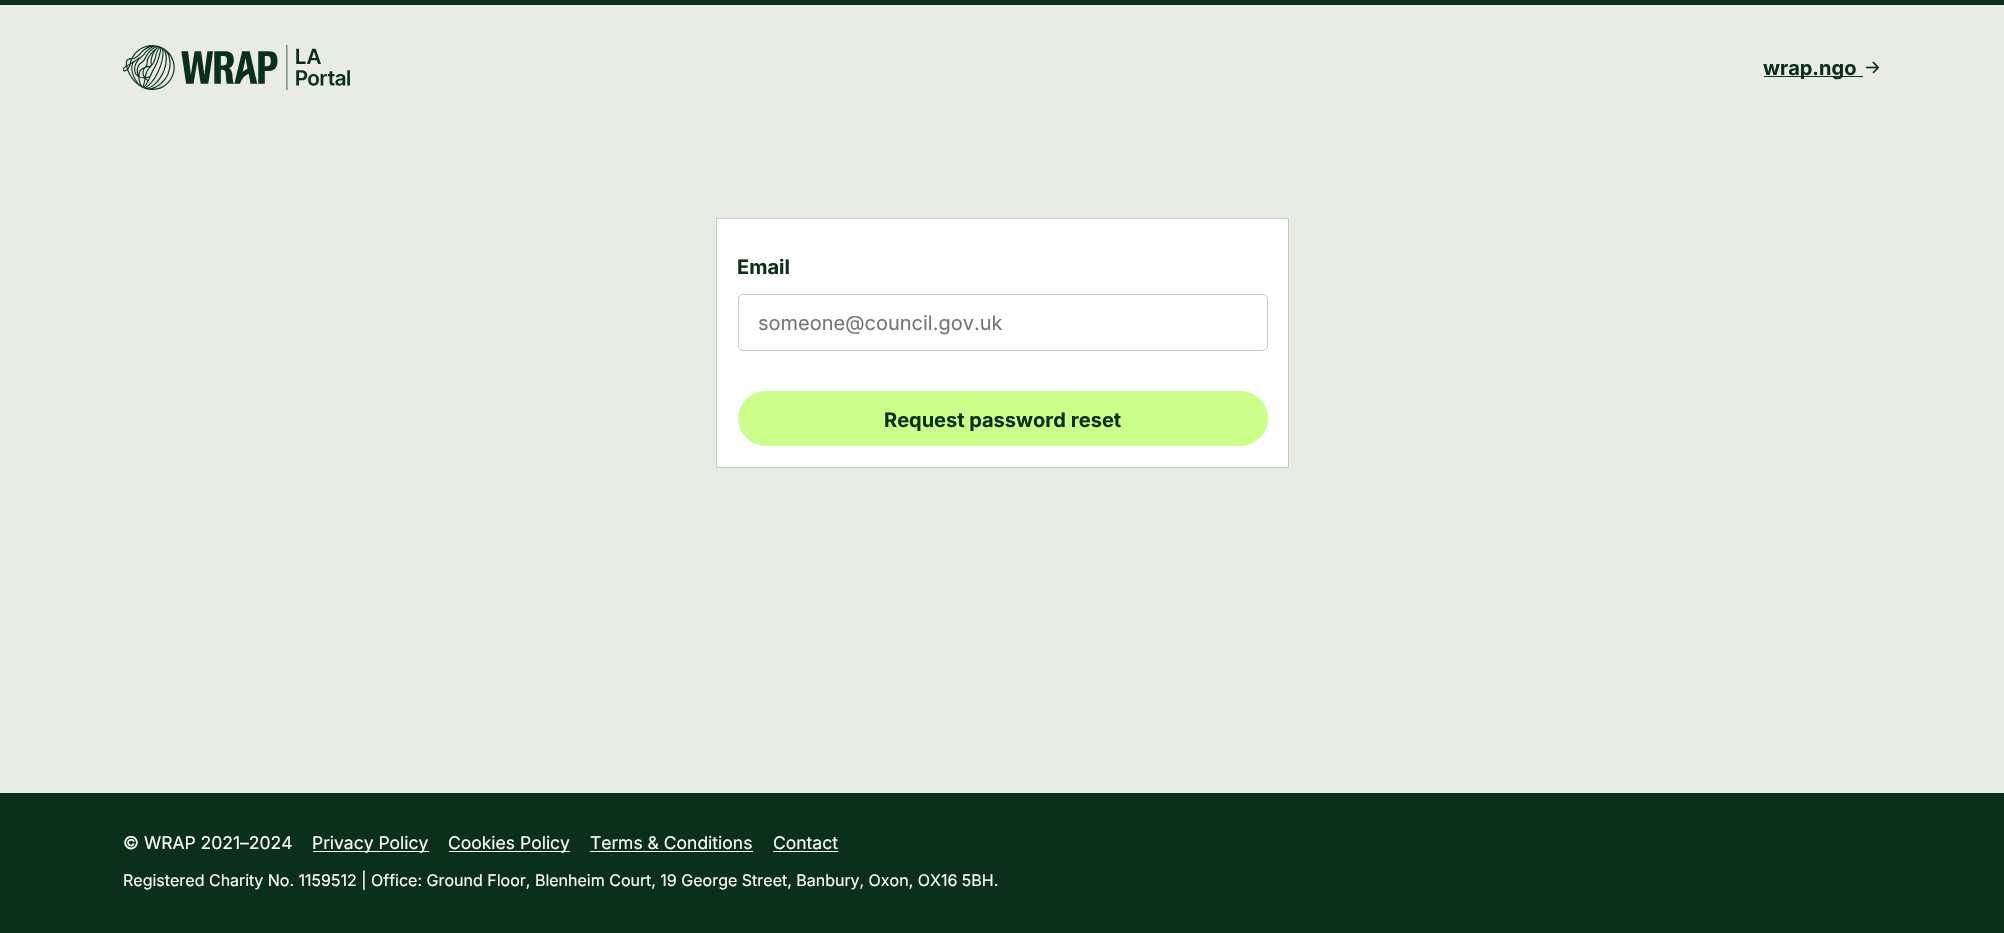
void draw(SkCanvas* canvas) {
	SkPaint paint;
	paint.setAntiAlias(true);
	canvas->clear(0xffe9ebe5);
	paint.setColor(0xff0b301a);
	canvas->drawRect(SkRect::MakeXYWH(0, 0, 2004, 5), paint);
	canvas->drawImageRect(SkImages::DeferredFromEncodedData(SkData::MakeFromFileName("img1.png")), SkRect::MakeXYWH(123, 45, 227, 45), SkSamplingOptions());
	canvas->drawRect(SkRect::MakeXYWH(1764, 76, 99, 1), paint);
	SkFont f1(fontMgr->matchFamilyStyle("Inter", SkFontStyle::Bold()), 20);
	f1.setSubpixel(true);
	canvas->drawString("wrap.ngo", 1763, 75, f1, paint);
	canvas->drawImageRect(SkImages::DeferredFromEncodedData(SkData::MakeFromFileName("img2.png")), SkRect::MakeXYWH(1865, 61, 15, 13), SkSamplingOptions());
	paint.setColor(0xffffffff);
	canvas->drawRect(SkRect::MakeXYWH(716.5, 218.5, 572, 249), paint);
	paint.setStroke(true);
	paint.setStrokeWidth(1);
	paint.setColor(0xffc2cbc6);
	canvas->drawRect(SkRect::MakeXYWH(716.5, 218.5, 572, 249), paint);
	paint.setStroke(false);
	paint.setColor(0xff0b301a);
	canvas->drawString("Email", 737, 274, f1, paint);
	paint.setStroke(true);
	paint.setColor(0xffc2cbc6);
	canvas->drawRoundRect(SkRect::MakeXYWH(738.5, 294.5, 529, 56), 4.5, 4.5, paint);
	SkFont f2(fontMgr->matchFamilyStyle("Inter", SkFontStyle::Normal()), 20);
	f2.setSubpixel(true);
	paint.setStroke(false);
	paint.setColor(0xff757575);
	canvas->drawString("someone@council.gov.uk", 758, 330, f2, paint);
	paint.setColor(0xffcbff89);
	canvas->drawRoundRect(SkRect::MakeXYWH(738.5, 391.5, 529, 54), 27, 27, paint);
	paint.setStroke(true);
	canvas->drawRoundRect(SkRect::MakeXYWH(738.5, 391.5, 529, 54), 27, 27, paint);
	paint.setStroke(false);
	paint.setColor(0xff0b301a);
	canvas->drawString("Request password reset", 884, 427, f1, paint);
	canvas->drawRect(SkRect::MakeXYWH(0, 793, 2004, 140), paint);
	SkFont f3(fontMgr->matchFamilyStyle("Inter", SkFontStyle::Normal()), 17.5);
	f3.setSubpixel(true);
	paint.setColor(0xffffffff);
	canvas->drawString("© WRAP 2021–2024", 123, 849, f3, paint);
	canvas->drawRect(SkRect::MakeXYWH(313, 851, 116, 1), paint);
	canvas->drawString("Privacy Policy", 312, 849, f3, paint);
	canvas->drawRect(SkRect::MakeXYWH(449, 851, 121, 1), paint);
	canvas->drawString("Cookies Policy", 448, 849, f3, paint);
	canvas->drawString("Terms & Conditions", 590, 849, f3, paint);
	canvas->drawRect(SkRect::MakeXYWH(590, 851, 163, 1), paint);
	canvas->drawString("Contact", 773, 849, f3, paint);
	canvas->drawRect(SkRect::MakeXYWH(773, 851, 65, 1), paint);
	SkFont f4(fontMgr->matchFamilyStyle("Inter", SkFontStyle::Normal()), 16);
	f4.setSubpixel(true);
	canvas->drawString("Registered Charity No. 1159512 | Office: Ground Floor, Blenheim Court, 19 George Street, Banbury, Oxon, OX16 5BH.", 123, 886, f4, paint);
}
